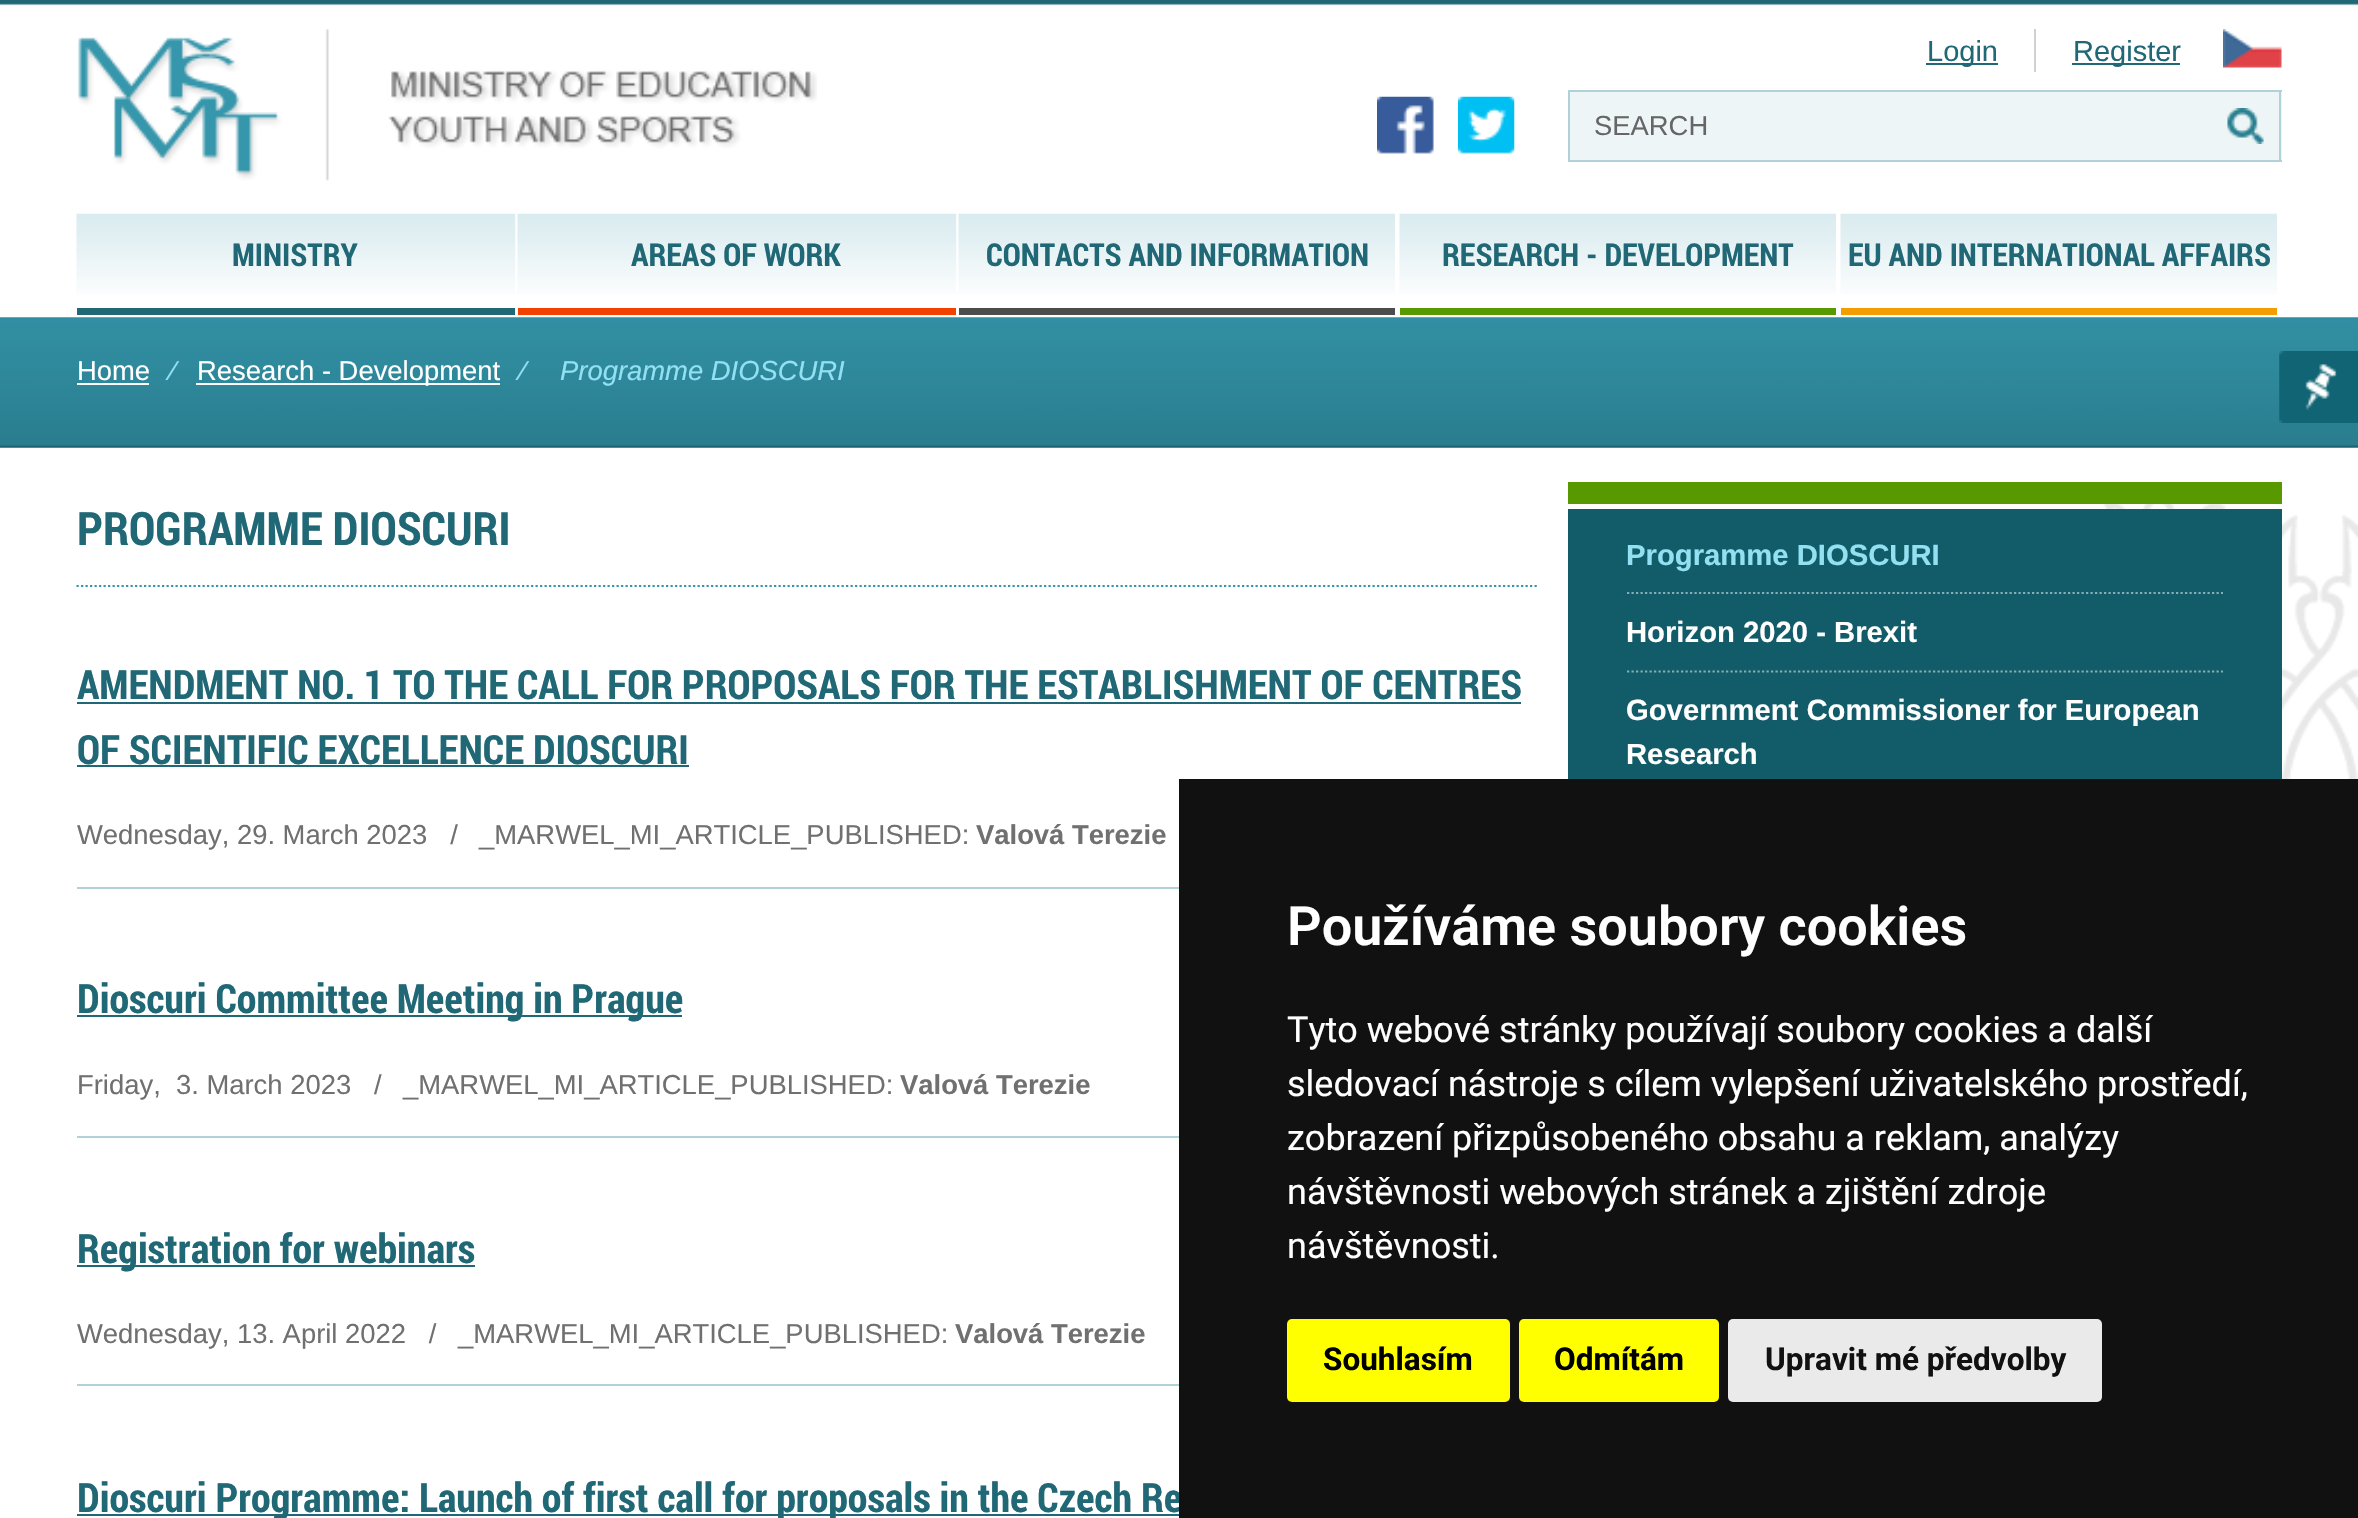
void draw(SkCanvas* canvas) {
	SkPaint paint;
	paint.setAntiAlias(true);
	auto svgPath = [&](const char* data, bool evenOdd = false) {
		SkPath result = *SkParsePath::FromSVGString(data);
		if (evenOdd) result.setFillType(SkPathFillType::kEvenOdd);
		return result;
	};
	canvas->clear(0xffffffff);
	canvas->drawImageRect(SkImages::DeferredFromEncodedData(SkData::MakeFromFileName("img1.png")), SkRect::MakeXYWH(0, 0, 2358, 6), SkSamplingOptions());
	canvas->drawImageRect(SkImages::DeferredFromEncodedData(SkData::MakeFromFileName("img2.png")), SkRect::MakeXYWH(0, 317, 2358, 131), SkSamplingOptions());
	canvas->drawImageRect(SkImages::DeferredFromEncodedData(SkData::MakeFromFileName("img3.png")), SkRect::MakeXYWH(2103, 504, 255, 275), SkSamplingOptions());
	canvas->drawImageRect(SkImages::DeferredFromEncodedData(SkData::MakeFromFileName("img4.png")), SkRect::MakeXYWH(78, 29, 739, 152), SkSamplingOptions());
	paint.setColor(0xff206875);
	canvas->drawRect(SkRect::MakeXYWH(1926, 63, 72, 2), paint);
	SkFont f1(fontMgr->matchFamilyStyle("Liberation Sans", SkFontStyle::Normal()), 29);
	f1.setSubpixel(true);
	canvas->drawString("Login", 1927, 61, f1, paint);
	paint.setColor(0xffd1d1d1);
	canvas->drawRect(SkRect::MakeXYWH(2034, 29, 2, 43), paint);
	paint.setColor(0xff206875);
	canvas->drawRect(SkRect::MakeXYWH(2072, 63, 108, 2), paint);
	canvas->drawString("Register", 2073, 61, f1, paint);
	canvas->drawImageRect(SkImages::DeferredFromEncodedData(SkData::MakeFromFileName("img5.png")), SkRect::MakeXYWH(2223, 29, 59, 39), SkSamplingOptions());
	canvas->drawImageRect(SkImages::DeferredFromEncodedData(SkData::MakeFromFileName("img6.png")), SkRect::MakeXYWH(1377, 96, 57, 58), SkSamplingOptions());
	canvas->drawImageRect(SkImages::DeferredFromEncodedData(SkData::MakeFromFileName("img7.png")), SkRect::MakeXYWH(1458, 96, 57, 58), SkSamplingOptions());
	paint.setColor(0xffedf5f6);
	canvas->drawRect(SkRect::MakeXYWH(1570, 92, 712, 68), paint);
	paint.setColor(0xffb0d1d7);
	canvas->drawRect(SkRect::MakeXYWH(1568, 90, 714, 2), paint);
	canvas->drawRect(SkRect::MakeXYWH(1568, 160, 642, 2), paint);
	canvas->drawRect(SkRect::MakeXYWH(1568, 90, 2, 72), paint);
	SkFont f2(fontMgr->matchFamilyStyle("Liberation Sans", SkFontStyle::Normal()), 27.4);
	f2.setSubpixel(true);
	paint.setColor(0xff666666);
	canvas->drawString("SEARCH", 1594, 135, f2, paint);
	canvas->drawImageRect(SkImages::DeferredFromEncodedData(SkData::MakeFromFileName("img8.png")), SkRect::MakeXYWH(2227, 108, 37, 36), SkSamplingOptions());
	paint.setColor(0xffb0d1d7);
	canvas->drawRect(SkRect::MakeXYWH(2279, 90, 2, 72), paint);
	canvas->drawRect(SkRect::MakeXYWH(2210, 160, 72, 2), paint);
	canvas->drawImageRect(SkImages::DeferredFromEncodedData(SkData::MakeFromFileName("img9.png")), SkRect::MakeXYWH(76, 213, 440, 81), SkSamplingOptions());
	paint.setColor(0xff206875);
	canvas->drawRect(SkRect::MakeXYWH(77, 308, 438, 7), paint);
	SkFont f3(fontMgr->matchFamilyStyle("Roboto Condensed", SkFontStyle::Bold()), 31.5);
	f3.setSubpixel(true);
	canvas->drawString("MINISTRY", 232, 266, f3, paint);
	canvas->drawImageRect(SkImages::DeferredFromEncodedData(SkData::MakeFromFileName("img9.png")), SkRect::MakeXYWH(517, 213, 440, 81), SkSamplingOptions());
	paint.setColor(0xfff34100);
	canvas->drawRect(SkRect::MakeXYWH(518, 308, 438, 7), paint);
	paint.setColor(0xff206875);
	canvas->drawString("AREAS OF WORK", 631, 266, f3, paint);
	canvas->drawImageRect(SkImages::DeferredFromEncodedData(SkData::MakeFromFileName("img10.png")), SkRect::MakeXYWH(958, 213, 437, 81), SkSamplingOptions());
	paint.setColor(0xff4c4c4c);
	canvas->drawRect(SkRect::MakeXYWH(959, 308, 436, 7), paint);
	paint.setColor(0xff206875);
	canvas->drawString("CONTACTS AND INFORMATION", 986, 266, f3, paint);
	canvas->drawImageRect(SkImages::DeferredFromEncodedData(SkData::MakeFromFileName("img10.png")), SkRect::MakeXYWH(1399, 213, 437, 81), SkSamplingOptions());
	paint.setColor(0xff599900);
	canvas->drawRect(SkRect::MakeXYWH(1400, 308, 436, 7), paint);
	paint.setColor(0xff206875);
	canvas->drawString("RESEARCH - DEVELOPMENT", 1442, 266, f3, paint);
	canvas->drawImageRect(SkImages::DeferredFromEncodedData(SkData::MakeFromFileName("img10.png")), SkRect::MakeXYWH(1840, 213, 437, 81), SkSamplingOptions());
	paint.setColor(0xfff59c00);
	canvas->drawRect(SkRect::MakeXYWH(1841, 308, 436, 7), paint);
	paint.setColor(0xff206875);
	canvas->drawString("EU AND INTERNATIONAL AFFAIRS", 1848, 266, f3, paint);
	canvas->drawImageRect(SkImages::DeferredFromEncodedData(SkData::MakeFromFileName("img11.png")), SkRect::MakeXYWH(2279, 351, 79, 72), SkSamplingOptions());
	paint.setColor(0xffffffff);
	canvas->drawString("Home", 77, 380, f2, paint);
	canvas->drawRect(SkRect::MakeXYWH(77, 383, 72, 2), paint);
	paint.setColor(0xff92e0f1);
	canvas->drawString("⁄", 171, 380, f2, paint);
	paint.setColor(0xffffffff);
	canvas->drawRect(SkRect::MakeXYWH(196, 383, 304, 2), paint);
	canvas->drawString("Research - Development", 197, 380, f2, paint);
	paint.setColor(0xff92e0f1);
	canvas->drawString("⁄", 521, 380, f2, paint);
	SkFont f4(fontMgr->matchFamilyStyle("Liberation Sans", SkFontStyle::Italic()), 27.4);
	f4.setSubpixel(true);
	canvas->drawString("Programme DIOSCURI", 560, 380, f4, paint);
	SkFont f5(fontMgr->matchFamilyStyle("Roboto Condensed", SkFontStyle::Bold()), 46);
	f5.setSubpixel(true);
	paint.setColor(0xff206875);
	canvas->drawString("PROGRAMME DIOSCURI", 77, 545, f5, paint);
	paint.setStroke(true);
	paint.setStrokeWidth(2.2);
	paint.setColor(0xff3696ab);
	paint.setPathEffect(SkDashPathEffect::Make({{2.25f, 2.25f}}, 0));
	canvas->drawPath(svgPath("M76.5 586H1537"), paint);
	paint.setPathEffect(nullptr);
	SkFont f6(fontMgr->matchFamilyStyle("Roboto Condensed", SkFontStyle::Bold()), 40.3);
	f6.setSubpixel(true);
	paint.setStroke(false);
	paint.setColor(0xff206875);
	canvas->drawString("AMENDMENT NO. 1 TO THE CALL FOR PROPOSALS FOR THE ESTABLISHMENT OF CENTRES", 77, 699, f6, paint);
	canvas->drawRect(SkRect::MakeXYWH(77, 702, 1444, 2), paint);
	canvas->drawString("OF SCIENTIFIC EXCELLENCE DIOSCURI", 77, 764, f6, paint);
	canvas->drawRect(SkRect::MakeXYWH(77, 765, 612, 2), paint);
	paint.setColor(0xffb0d1d7);
	canvas->drawRect(SkRect::MakeXYWH(77, 887, 1102, 2), paint);
	paint.setColor(0xff707070);
	canvas->drawString("Wednesday, 29. March 2023   /", 77, 844, f2, paint);
	canvas->drawString("_MARWEL_MI_ARTICLE_PUBLISHED:", 479, 844, f2, paint);
	SkFont f7(fontMgr->matchFamilyStyle("Liberation Sans", SkFontStyle::Bold()), 27.4);
	f7.setSubpixel(true);
	canvas->drawString("Valová Terezie", 976, 844, f7, paint);
	paint.setColor(0xff206875);
	canvas->drawRect(SkRect::MakeXYWH(77, 1015, 605, 2), paint);
	canvas->drawString("Dioscuri Committee Meeting in Prague", 77, 1013, f6, paint);
	paint.setColor(0xffb0d1d7);
	canvas->drawRect(SkRect::MakeXYWH(77, 1136, 1102, 2), paint);
	paint.setColor(0xff707070);
	canvas->drawString("Friday,  3. March 2023   /", 77, 1094, f2, paint);
	canvas->drawString("_MARWEL_MI_ARTICLE_PUBLISHED:", 403, 1094, f2, paint);
	canvas->drawString("Valová Terezie", 900, 1094, f7, paint);
	paint.setColor(0xff206875);
	canvas->drawRect(SkRect::MakeXYWH(77, 1265, 398, 2), paint);
	canvas->drawString("Registration for webinars", 77, 1263, f6, paint);
	paint.setColor(0xffb0d1d7);
	canvas->drawRect(SkRect::MakeXYWH(77, 1384, 1102, 2), paint);
	paint.setColor(0xff707070);
	canvas->drawString("Wednesday, 13. April 2022   /", 77, 1343, f2, paint);
	canvas->drawString("_MARWEL_MI_ARTICLE_PUBLISHED:", 458, 1343, f2, paint);
	canvas->drawString("Valová Terezie", 955, 1343, f7, paint);
	paint.setColor(0xff206875);
	canvas->drawRect(SkRect::MakeXYWH(77, 1514, 1102, 2), paint);
	canvas->drawString("Dioscuri Programme: Launch of first call for proposals in the Czech Re", 77, 1512, f6, paint);
	paint.setColor(0xff599900);
	canvas->drawRect(SkRect::MakeXYWH(1568, 482, 714, 22), paint);
	paint.setColor(0xff125b68);
	canvas->drawRect(SkRect::MakeXYWH(1568, 509, 714, 270), paint);
	paint.setStroke(true);
	paint.setColor(0xff89adb4);
	paint.setPathEffect(SkDashPathEffect::Make({{2.25f, 2.25f}}, 0));
	canvas->drawPath(svgPath("M1627 593H2223"), paint);
	paint.setPathEffect(nullptr);
	SkFont f8(fontMgr->matchFamilyStyle("Liberation Sans", SkFontStyle::Bold()), 29.25);
	f8.setSubpixel(true);
	paint.setStroke(false);
	paint.setColor(0xff92e0f1);
	canvas->drawString("Programme DIOSCURI", 1626, 565, f8, paint);
	paint.setStroke(true);
	paint.setColor(0xff89adb4);
	paint.setPathEffect(SkDashPathEffect::Make({{2.25f, 2.25f}}, 0));
	canvas->drawPath(svgPath("M1627 671.5H2223"), paint);
	paint.setPathEffect(nullptr);
	paint.setStroke(false);
	paint.setColor(0xffffffff);
	canvas->drawString("Horizon 2020 - Brexit", 1626, 642, f8, paint);
	canvas->drawString("Government Commissioner for European", 1626, 720, f8, paint);
	canvas->drawString("Research", 1626, 764, f8, paint);
	paint.setColor(0xff111111);
	canvas->drawRect(SkRect::MakeXYWH(1179, 779, 1179, 739), paint);
	SkFont f9(fontMgr->matchFamilyStyle("Roboto", SkFontStyle(600, SkFontStyle::kNormal_Width, SkFontStyle::kUpright_Slant)), 54);
	f9.setSubpixel(true);
	paint.setColor(0xffffffff);
	canvas->drawString("Používáme soubory cookies", 1287, 945, f9, paint);
	SkFont f10(fontMgr->matchFamilyStyle("Roboto", SkFontStyle::Normal()), 36);
	f10.setSubpixel(true);
	canvas->drawString("Tyto webové stránky používají soubory cookies a další", 1287, 1042, f10, paint);
	canvas->drawString("sledovací nástroje s cílem vylepšení uživatelského prostředí,", 1287, 1096, f10, paint);
	canvas->drawString("zobrazení přizpůsobeného obsahu a reklam, analýzy", 1287, 1150, f10, paint);
	canvas->drawString("návštěvnosti webových stránek a zjištění zdroje", 1287, 1204, f10, paint);
	canvas->drawString("návštěvnosti.", 1287, 1258, f10, paint);
	paint.setColor(0xffffff00);
	canvas->drawRoundRect(SkRect::MakeXYWH(1287, 1319, 223, 83), 5, 5, paint);
	SkFont f11(fontMgr->matchFamilyStyle("Roboto", SkFontStyle::Bold()), 31.5);
	f11.setSubpixel(true);
	paint.setColor(0xff000000);
	canvas->drawString("Souhlasím", 1323, 1370, f11, paint);
	paint.setColor(0xffffff00);
	canvas->drawRoundRect(SkRect::MakeXYWH(1519, 1319, 200, 83), 5, 5, paint);
	paint.setColor(0xff000000);
	canvas->drawString("Odmítám", 1554, 1370, f11, paint);
	paint.setColor(0xffeaeaea);
	canvas->drawRoundRect(SkRect::MakeXYWH(1728, 1319, 374, 83), 5, 5, paint);
	paint.setColor(0xff111111);
	canvas->drawString("Upravit mé předvolby", 1765, 1370, f11, paint);
}
